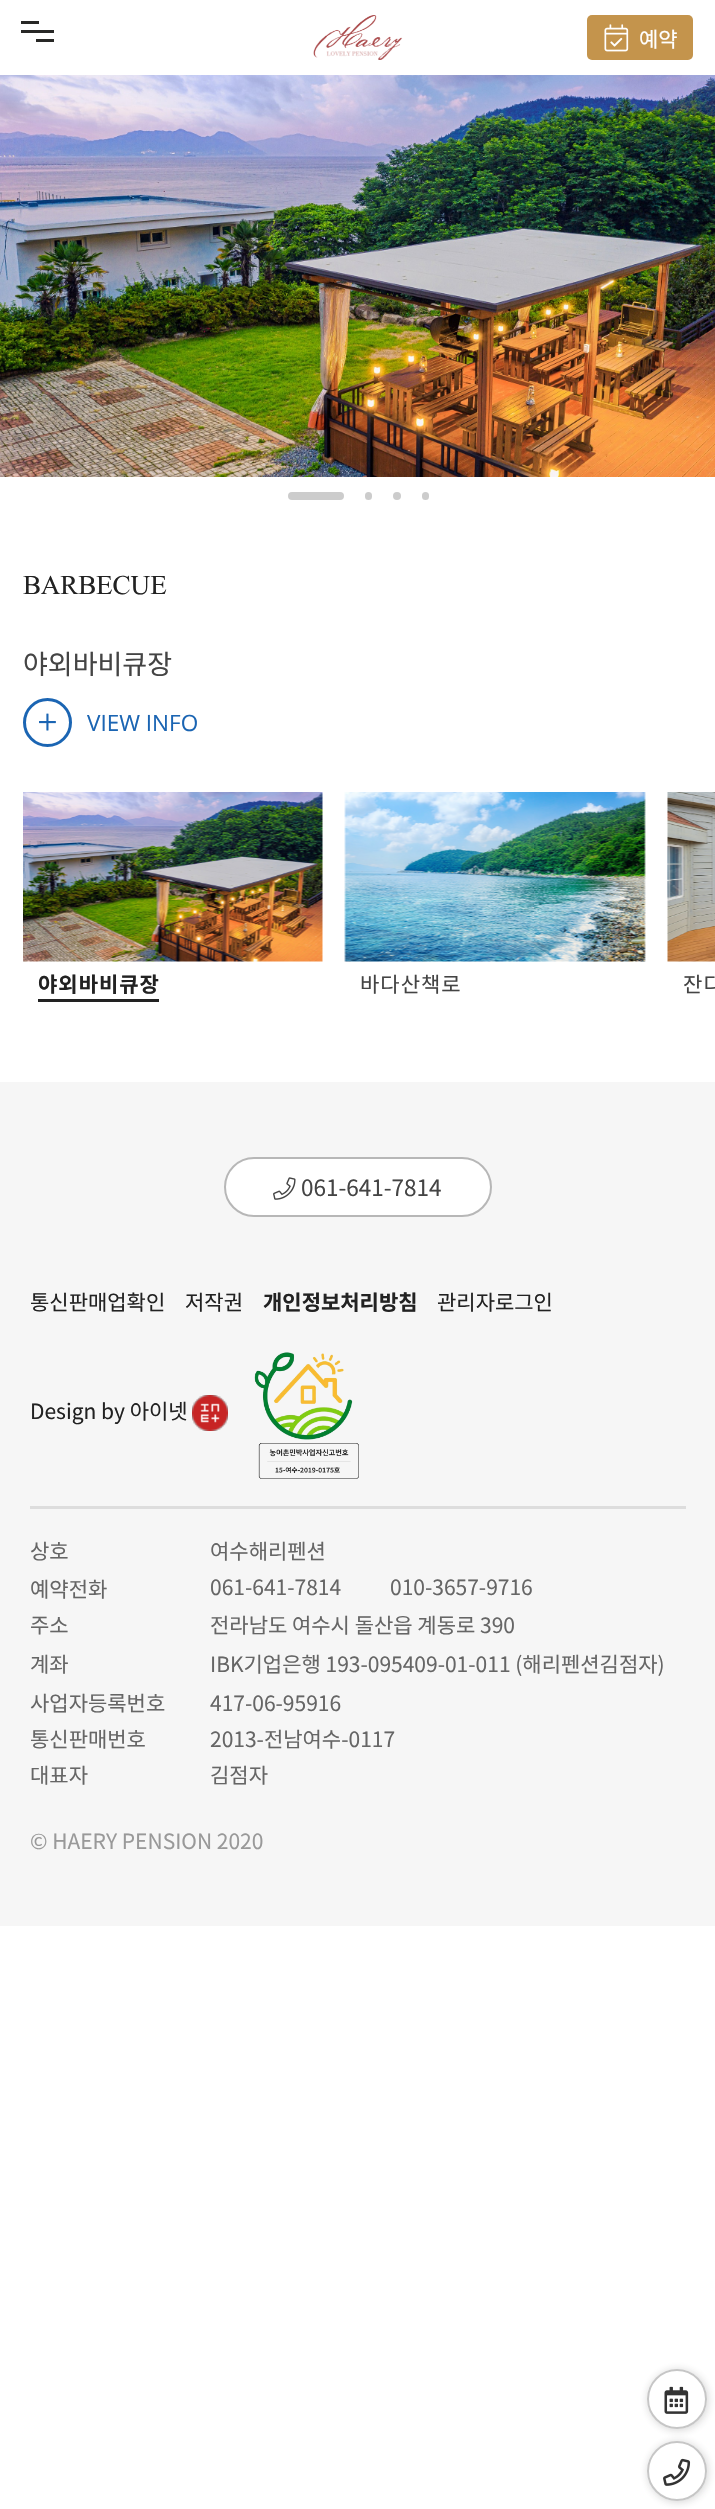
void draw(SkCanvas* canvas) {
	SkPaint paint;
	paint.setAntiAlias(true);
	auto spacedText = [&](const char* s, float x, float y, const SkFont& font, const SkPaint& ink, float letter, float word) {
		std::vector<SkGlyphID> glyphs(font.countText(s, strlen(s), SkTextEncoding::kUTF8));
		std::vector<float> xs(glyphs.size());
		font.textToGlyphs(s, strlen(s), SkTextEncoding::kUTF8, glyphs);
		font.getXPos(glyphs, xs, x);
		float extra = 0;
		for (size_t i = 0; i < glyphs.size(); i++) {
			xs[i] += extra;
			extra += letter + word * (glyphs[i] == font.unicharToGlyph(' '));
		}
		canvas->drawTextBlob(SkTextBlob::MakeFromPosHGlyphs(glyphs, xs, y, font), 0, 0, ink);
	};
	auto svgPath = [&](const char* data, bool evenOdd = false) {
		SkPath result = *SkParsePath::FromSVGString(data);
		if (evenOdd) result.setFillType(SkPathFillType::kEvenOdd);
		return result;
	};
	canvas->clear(0xffffffff);
	paint.setColor(0xff282826);
	canvas->drawRect(SkRect::MakeXYWH(21, 21, 18, 3), paint);
	canvas->drawRect(SkRect::MakeXYWH(21, 30, 33, 3), paint);
	canvas->drawRect(SkRect::MakeXYWH(36, 39, 18, 3), paint);
	canvas->drawImageRect(SkImages::DeferredFromEncodedData(SkData::MakeFromFileName("img1.png")), SkRect::MakeXYWH(313, 15, 90, 45), SkSamplingOptions());
	paint.setColor(0xffc4944c);
	canvas->drawRoundRect(SkRect::MakeXYWH(587, 15, 106, 45), 5, 5, paint);
	canvas->drawImageRect(SkImages::DeferredFromEncodedData(SkData::MakeFromFileName("img2.png")), SkRect::MakeXYWH(604, 24, 25, 28), SkSamplingOptions());
	SkFont f1(fontMgr->matchFamilyStyle("Noto Sans KR", SkFontStyle::Normal()), 21);
	f1.setSubpixel(true);
	paint.setColor(0xffffffff);
	canvas->drawString("예약", 639, 47, f1, paint);
	canvas->drawImageRect(SkImages::DeferredFromEncodedData(SkData::MakeFromFileName("img3.png")), SkRect::MakeXYWH(0, 75, 715, 402), SkSamplingOptions());
	paint.setColor(0xffcccccc);
	canvas->drawRoundRect(SkRect::MakeXYWH(288, 492, 56, 8), 4, 4, paint);
	canvas->drawRoundRect(SkRect::MakeXYWH(365, 492, 7, 8), 3.5, 3.5, paint);
	canvas->drawCircle(397, 496, 4, paint);
	canvas->drawRoundRect(SkRect::MakeXYWH(422, 492, 7, 8), 3.5, 3.5, paint);
	SkFont f2(fontMgr->matchFamilyStyle("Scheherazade", SkFontStyle::Normal()), 36);
	f2.setSubpixel(true);
	paint.setColor(0xff222222);
	canvas->drawString("BARBECUE", 23, 594, f2, paint);
	SkFont f3(fontMgr->matchFamilyStyle("Noto Sans KR", SkFontStyle::Normal()), 27);
	f3.setSubpixel(true);
	paint.setColor(0xff444444);
	canvas->drawString("야외바비큐장", 23, 674, f3, paint);
	paint.setStroke(true);
	paint.setStrokeWidth(3);
	paint.setColor(0xff1b65b3);
	canvas->drawCircle(47.5, 722.5, 23, paint);
	canvas->drawImageRect(SkImages::DeferredFromEncodedData(SkData::MakeFromFileName("img4.png")), SkRect::MakeXYWH(39, 713, 17, 18), SkSamplingOptions());
	SkFont f4(fontMgr->matchFamilyStyle("Open Sans", SkFontStyle::Normal()), 22.5);
	f4.setSubpixel(true);
	paint.setStroke(false);
	canvas->drawString("VIEW INFO", 87, 731, f4, paint);
	canvas->drawImageRect(SkImages::DeferredFromEncodedData(SkData::MakeFromFileName("img5.png")), SkRect::MakeXYWH(23, 792, 300, 170), SkSamplingOptions());
	SkFont f5(fontMgr->matchFamilyStyle("Noto Sans KR", SkFontStyle::Bold()), 21);
	f5.setSubpixel(true);
	paint.setColor(0xff222222);
	spacedText("야외바비큐장", 38, 992, f5, paint, 1, 0);
	canvas->drawRect(SkRect::MakeXYWH(38, 999, 121, 3), paint);
	canvas->drawImageRect(SkImages::DeferredFromEncodedData(SkData::MakeFromFileName("img6.png")), SkRect::MakeXYWH(344, 792, 302, 170), SkSamplingOptions());
	paint.setColor(0xff444444);
	spacedText("바다산책로", 360, 992, f1, paint, 1, 0);
	canvas->drawImageRect(SkImages::DeferredFromEncodedData(SkData::MakeFromFileName("img7.png")), SkRect::MakeXYWH(667, 792, 48, 170), SkSamplingOptions());
	spacedText("잔디", 683, 992, f1, paint, 1, 0);
	paint.setColor(0xfff6f6f6);
	canvas->drawRect(SkRect::MakeXYWH(0, 1082, 715, 844), paint);
	paint.setColor(0xffffffff);
	canvas->drawRoundRect(SkRect::MakeXYWH(225, 1158, 266, 58), 29, 29, paint);
	paint.setStroke(true);
	paint.setStrokeWidth(2);
	paint.setColor(0xffb7b7b7);
	canvas->drawRoundRect(SkRect::MakeXYWH(225, 1158, 266, 58), 29, 29, paint);
	canvas->drawImageRect(SkImages::DeferredFromEncodedData(SkData::MakeFromFileName("img8.png")), SkRect::MakeXYWH(273, 1177, 23, 23), SkSamplingOptions());
	SkFont f6(fontMgr->matchFamilyStyle("Noto Sans KR", SkFontStyle::Normal()), 22.5);
	f6.setSubpixel(true);
	paint.setStroke(false);
	paint.setColor(0xff444444);
	canvas->drawString("061-641-7814", 301, 1196, f6, paint);
	paint.setColor(0xffdddddd);
	canvas->drawRect(SkRect::MakeXYWH(30, 1506, 656, 3), paint);
	paint.setColor(0xff222222);
	canvas->drawString("통신판매업확인", 30, 1310, f1, paint);
	canvas->drawString("저작권", 185, 1310, f1, paint);
	canvas->drawString("개인정보처리방침", 263, 1310, f5, paint);
	canvas->drawString("관리자로그인", 437, 1310, f1, paint);
	canvas->drawString("Design by 아이넷", 30, 1419, f1, paint);
	canvas->drawImageRect(SkImages::DeferredFromEncodedData(SkData::MakeFromFileName("img9.png")), SkRect::MakeXYWH(192, 1395, 36, 36), SkSamplingOptions());
	canvas->drawImageRect(SkImages::DeferredFromEncodedData(SkData::MakeFromFileName("img10.png")), SkRect::MakeXYWH(254, 1352, 105, 127), SkSamplingOptions());
	paint.setColor(0xff666666);
	canvas->drawString("상호", 30, 1559, f1, paint);
	canvas->drawString("여수해리펜션", 210, 1559, f1, paint);
	canvas->drawString("예약전화", 30, 1597, f1, paint);
	canvas->drawString("061-641-7814", 210, 1595, f1, paint);
	canvas->drawString("010-3657-9716", 390, 1595, f1, paint);
	canvas->drawString("주소", 30, 1633, f1, paint);
	canvas->drawString("전라남도 여수시 돌산읍 계동로 390", 210, 1633, f1, paint);
	canvas->drawString("계좌", 30, 1672, f1, paint);
	canvas->drawString("IBK기업은행 193-095409-01-011 (해리펜션김점자)", 210, 1672, f1, paint);
	canvas->drawString("사업자등록번호", 30, 1711, f1, paint);
	canvas->drawString("417-06-95916", 210, 1711, f1, paint);
	canvas->drawString("통신판매번호", 30, 1747, f1, paint);
	canvas->drawString("2013-전남여수-0117", 210, 1747, f1, paint);
	canvas->drawString("대표자", 30, 1783, f1, paint);
	canvas->drawString("김점자", 210, 1783, f1, paint);
	paint.setColor(0xff999999);
	canvas->drawString("© HAERY PENSION 2020", 30, 1849, f1, paint);
	canvas->save();
	canvas->clipPath(svgPath("M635 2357H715V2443H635ZM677 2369C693.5 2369 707 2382.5 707 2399C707 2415.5 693.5 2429 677 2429C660.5 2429 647 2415.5 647 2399C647 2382.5 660.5 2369 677 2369Z", true), true);
	paint.setColor(0x33242424);
	paint.setMaskFilter(SkMaskFilter::MakeBlur(kNormal_SkBlurStyle, 4));
	canvas->drawRoundRect(SkRect::MakeXYWH(648, 2370, 60, 60), 30, 30, paint);
	paint.setMaskFilter(nullptr);
	canvas->restore();
	paint.setColor(0xccffffff);
	canvas->drawCircle(677, 2399, 29, paint);
	paint.setStroke(true);
	paint.setColor(0xffc6c6c6);
	canvas->drawCircle(677, 2399, 29, paint);
	canvas->drawImageRect(SkImages::DeferredFromEncodedData(SkData::MakeFromFileName("img11.png")), SkRect::MakeXYWH(664, 2386, 25, 28), SkSamplingOptions());
	canvas->save();
	canvas->clipPath(svgPath("M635 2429H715V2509H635ZM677 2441C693.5 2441 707 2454.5 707 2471C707 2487.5 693.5 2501 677 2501C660.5 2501 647 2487.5 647 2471C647 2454.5 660.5 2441 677 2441Z", true), true);
	paint.setStroke(false);
	paint.setColor(0x33242424);
	paint.setMaskFilter(SkMaskFilter::MakeBlur(kNormal_SkBlurStyle, 4));
	canvas->drawRoundRect(SkRect::MakeXYWH(648, 2442, 60, 60), 30, 30, paint);
	paint.setMaskFilter(nullptr);
	canvas->restore();
	paint.setColor(0xccffffff);
	canvas->drawCircle(677, 2471, 29, paint);
	paint.setStroke(true);
	paint.setColor(0xffc6c6c6);
	canvas->drawCircle(677, 2471, 29, paint);
	canvas->drawImageRect(SkImages::DeferredFromEncodedData(SkData::MakeFromFileName("img12.png")), SkRect::MakeXYWH(663, 2458, 28, 28), SkSamplingOptions());
}
